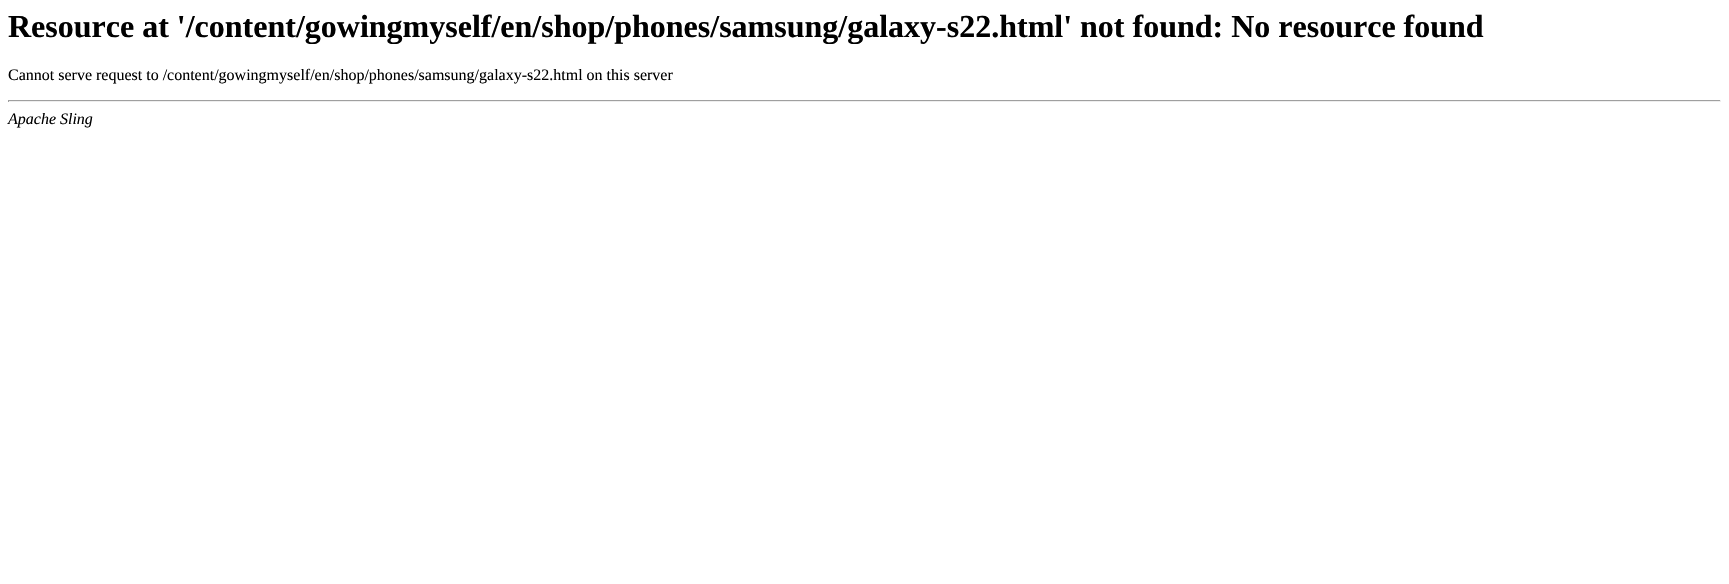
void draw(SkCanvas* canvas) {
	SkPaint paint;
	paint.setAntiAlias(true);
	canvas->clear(0xffffffff);
	SkFont f1(fontMgr->matchFamilyStyle("Liberation Serif", SkFontStyle::Bold()), 32);
	f1.setSubpixel(true);
	paint.setColor(0xff000000);
	canvas->drawString("Resource at '/content/gowingmyself/en/shop/phones/samsung/galaxy-s22.html' not found: No resource found", 8, 37, f1, paint);
	SkFont f2(fontMgr->matchFamilyStyle("Liberation Serif", SkFontStyle::Normal()), 16);
	f2.setSubpixel(true);
	canvas->drawString("Cannot serve request to /content/gowingmyself/en/shop/phones/samsung/galaxy-s22.html on this server", 8, 80, f2, paint);
	paint.setColor(0xff9f9f9f);
	canvas->drawRect(SkRect::MakeXYWH(8, 100, 1713, 1), paint);
	paint.setColor(0xffeeeeee);
	canvas->drawRect(SkRect::MakeXYWH(1720, 100, 1, 2), paint);
	canvas->drawRect(SkRect::MakeXYWH(8, 101, 1713, 1), paint);
	paint.setColor(0xff9f9f9f);
	canvas->drawRect(SkRect::MakeXYWH(8, 100, 1, 2), paint);
	SkFont f3(fontMgr->matchFamilyStyle("Liberation Serif", SkFontStyle::Italic()), 16);
	f3.setSubpixel(true);
	paint.setColor(0xff000000);
	canvas->drawString("Apache Sling", 8, 124, f3, paint);
}
